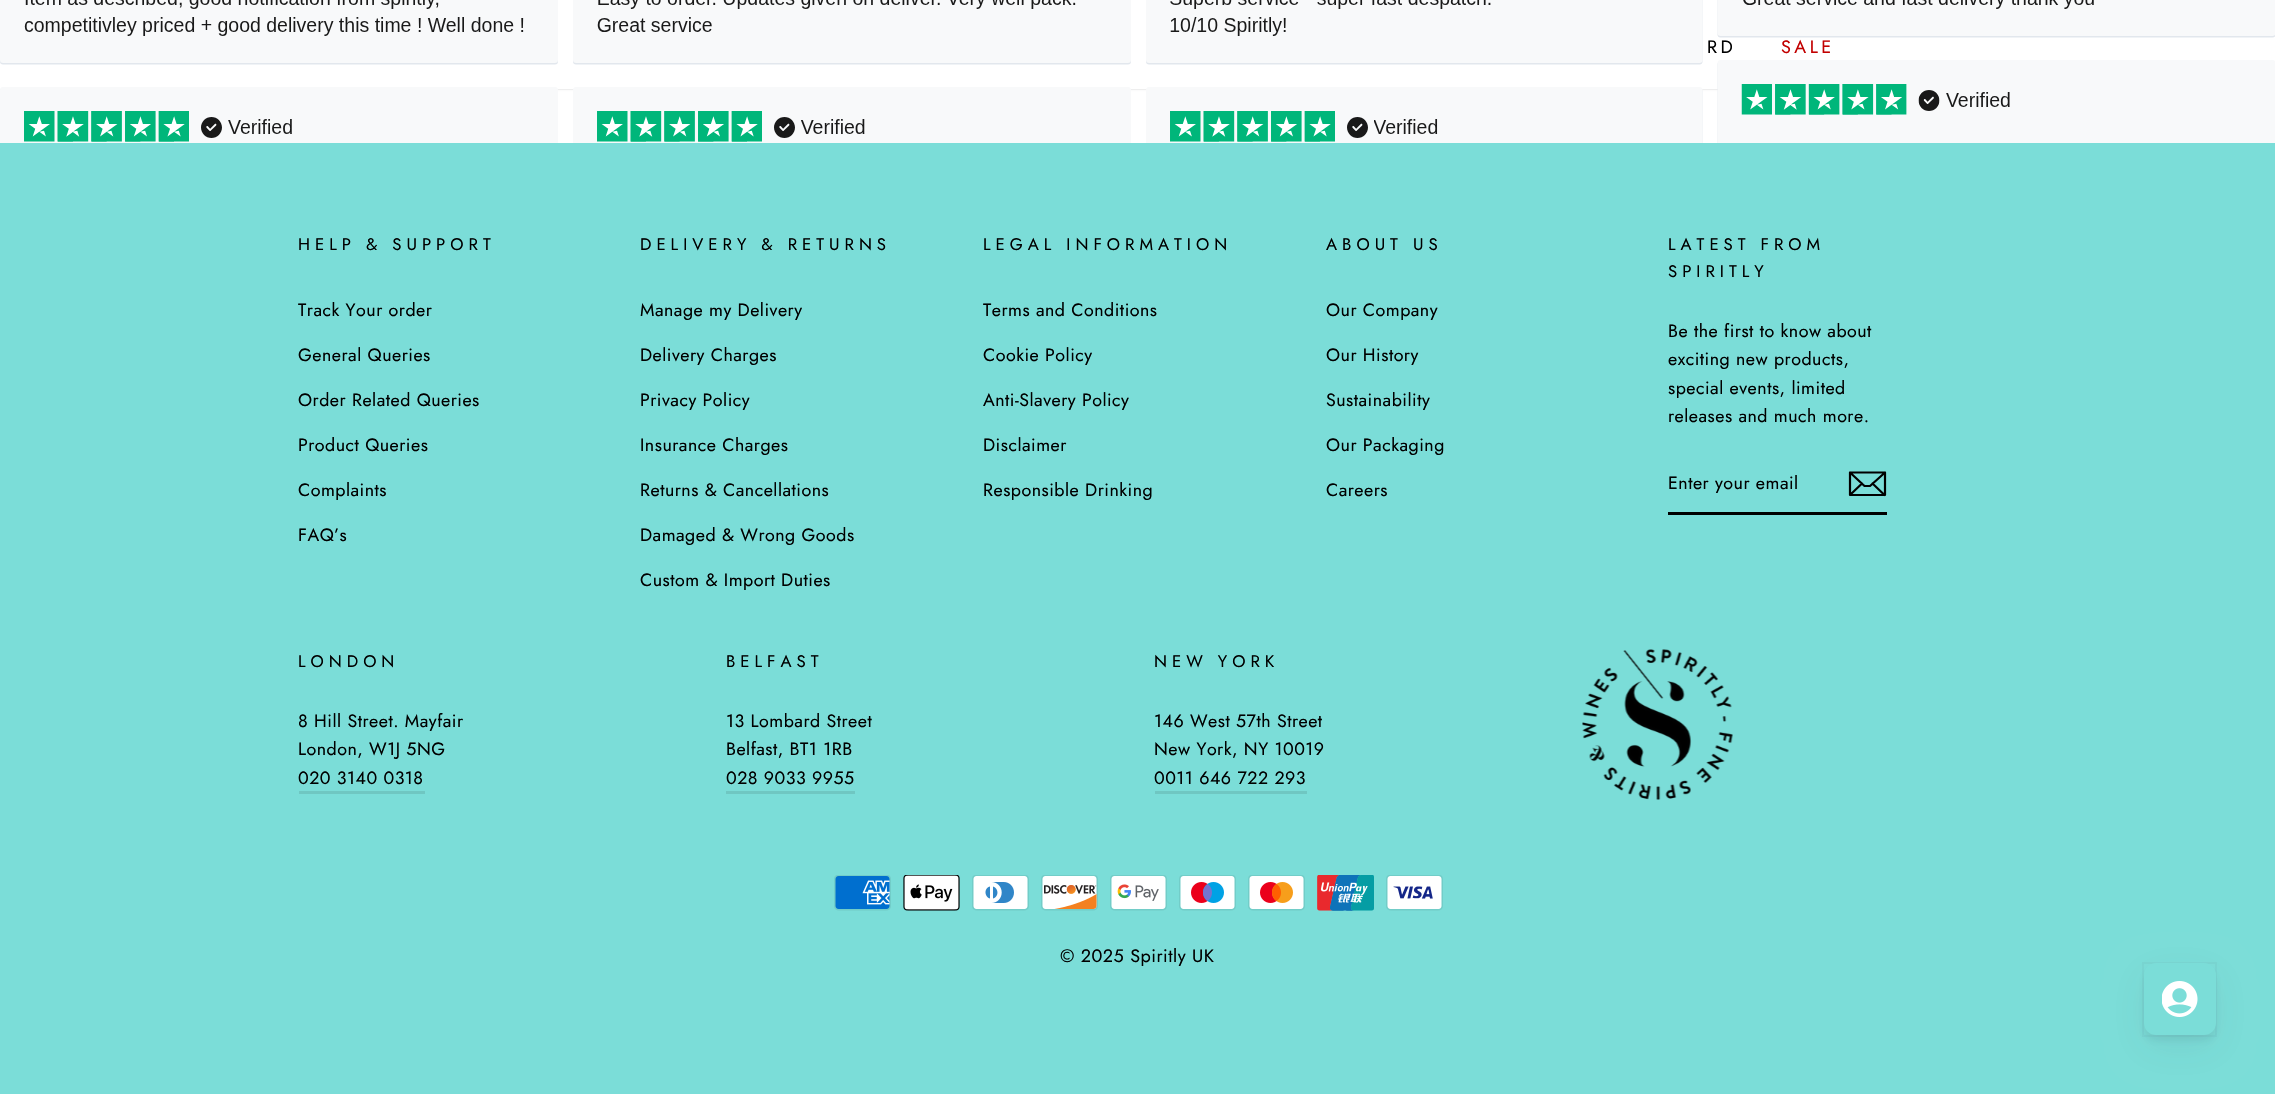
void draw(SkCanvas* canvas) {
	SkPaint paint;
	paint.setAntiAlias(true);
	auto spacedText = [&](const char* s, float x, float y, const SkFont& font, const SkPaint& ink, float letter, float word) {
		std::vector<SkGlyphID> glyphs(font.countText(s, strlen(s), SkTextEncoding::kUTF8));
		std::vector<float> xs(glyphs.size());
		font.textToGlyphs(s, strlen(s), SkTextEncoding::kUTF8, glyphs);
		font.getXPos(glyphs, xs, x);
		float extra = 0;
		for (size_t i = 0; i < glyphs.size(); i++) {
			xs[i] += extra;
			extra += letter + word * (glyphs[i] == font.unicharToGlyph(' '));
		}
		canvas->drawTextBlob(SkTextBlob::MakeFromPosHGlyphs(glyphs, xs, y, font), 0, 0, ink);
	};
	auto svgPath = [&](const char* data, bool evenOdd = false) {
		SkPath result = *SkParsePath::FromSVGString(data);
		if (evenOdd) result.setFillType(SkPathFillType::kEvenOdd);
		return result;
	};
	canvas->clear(0xffffffff);
	paint.setColor(0x33000000);
	paint.setMaskFilter(SkMaskFilter::MakeBlur(kNormal_SkBlurStyle, 1));
	canvas->drawRect(SkRect::MakeXYWH(0, 0, 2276, 89), paint);
	paint.setMaskFilter(nullptr);
	paint.setColor(0xffffffff);
	canvas->drawRect(SkRect::MakeXYWH(0, 0, 2275, 89), paint);
	SkFont f1(fontMgr->matchFamilyStyle("Jost", SkFontStyle::Normal()), 18);
	f1.setSubpixel(true);
	paint.setColor(0xff000000);
	spacedText("RD", 1707, 53, f1, paint, 3.5, 0);
	paint.setColor(0xffc20000);
	spacedText("SALE", 1781, 53, f1, paint, 3.5, 0);
	canvas->drawImageRect(SkImages::DeferredFromEncodedData(SkData::MakeFromFileName("img1.png")), SkRect::MakeXYWH(0, 0, 2275, 143), SkSamplingOptions());
	paint.setColor(0xff7bddd8);
	canvas->drawRect(SkRect::MakeXYWH(0, 143, 2275, 951), paint);
	SkFont f2(fontMgr->matchFamilyStyle("Jost", SkFontStyle::Normal()), 16.75);
	f2.setSubpixel(true);
	paint.setColor(0xff000000);
	spacedText("HELP & SUPPORT", 298, 250, f2, paint, 5, 0);
	SkFont f3(fontMgr->matchFamilyStyle("Jost", SkFontStyle::Normal()), 17.8);
	f3.setSubpixel(true);
	spacedText("Track Your order", 298, 316, f3, paint, 0.5, 0);
	spacedText("General Queries", 298, 361, f3, paint, 0.5, 0);
	spacedText("Order Related Queries", 298, 406, f3, paint, 0.5, 0);
	spacedText("Product Queries", 298, 451, f3, paint, 0.5, 0);
	spacedText("Complaints", 298, 496, f3, paint, 0.5, 0);
	spacedText("FAQ’s", 298, 541, f3, paint, 0.5, 0);
	spacedText("DELIVERY & RETURNS", 640, 250, f2, paint, 5, 0);
	spacedText("Manage my Delivery", 640, 316, f3, paint, 0.5, 0);
	spacedText("Delivery Charges", 640, 361, f3, paint, 0.5, 0);
	spacedText("Privacy Policy", 640, 406, f3, paint, 0.5, 0);
	spacedText("Insurance Charges", 640, 451, f3, paint, 0.5, 0);
	spacedText("Returns & Cancellations", 640, 496, f3, paint, 0.5, 0);
	spacedText("Damaged & Wrong Goods", 640, 541, f3, paint, 0.5, 0);
	spacedText("Custom & Import Duties", 640, 586, f3, paint, 0.5, 0);
	spacedText("LEGAL INFORMATION", 983, 250, f2, paint, 5, 0);
	spacedText("Terms and Conditions", 983, 316, f3, paint, 0.5, 0);
	spacedText("Cookie Policy", 983, 361, f3, paint, 0.5, 0);
	spacedText("Anti-Slavery Policy", 983, 406, f3, paint, 0.5, 0);
	spacedText("Disclaimer", 983, 451, f3, paint, 0.5, 0);
	spacedText("Responsible Drinking", 983, 496, f3, paint, 0.5, 0);
	spacedText("ABOUT US", 1326, 250, f2, paint, 5, 0);
	spacedText("Our Company", 1326, 316, f3, paint, 0.5, 0);
	spacedText("Our History", 1326, 361, f3, paint, 0.5, 0);
	spacedText("Sustainability", 1326, 406, f3, paint, 0.5, 0);
	spacedText("Our Packaging", 1326, 451, f3, paint, 0.5, 0);
	spacedText("Careers", 1326, 496, f3, paint, 0.5, 0);
	spacedText("LATEST FROM", 1668, 250, f2, paint, 5, 0);
	spacedText("SPIRITLY", 1668, 277, f2, paint, 5, 0);
	spacedText("Be the first to know about", 1668, 337, f3, paint, 0.5, 0);
	spacedText("exciting new products,", 1668, 365, f3, paint, 0.5, 0);
	spacedText("special events, limited", 1668, 394, f3, paint, 0.5, 0);
	spacedText("releases and much more.", 1668, 422, f3, paint, 0.5, 0);
	canvas->drawRect(SkRect::MakeXYWH(1668, 512, 219, 3), paint);
	spacedText("Enter your email", 1668, 489, f3, paint, 0.5, 0);
	paint.setStroke(true);
	paint.setStrokeWidth(2.2);
	paint.setStrokeCap(SkPaint::kRound_Cap);
	paint.setStrokeJoin(SkPaint::kRound_Join);
	canvas->drawPath(svgPath("M1885 495H1850V472.5H1885ZM1850 472.5L1864.5 486H1870L1885 472.5M1862 483.5L1850.5 494.5M1884.5 495L1872.5 483.5"), paint);
	paint.setStroke(false);
	spacedText("LONDON", 298, 667, f2, paint, 5, 0);
	spacedText("8 Hill Street. Mayfair", 298, 727, f3, paint, 0.5, 0);
	spacedText("London, W1J 5NG", 298, 755, f3, paint, 0.5, 0);
	spacedText("020 3140 0318", 298, 784, f3, paint, 0.5, 0);
	paint.setColor(0xff6fc7c2);
	canvas->drawRect(SkRect::MakeXYWH(299, 791, 126, 3), paint);
	paint.setColor(0xff000000);
	spacedText("BELFAST", 726, 667, f2, paint, 5, 0);
	spacedText("13 Lombard Street", 726, 727, f3, paint, 0.5, 0);
	spacedText("Belfast, BT1 1RB", 726, 755, f3, paint, 0.5, 0);
	spacedText("028 9033 9955", 726, 784, f3, paint, 0.5, 0);
	paint.setColor(0xff6fc7c2);
	canvas->drawRect(SkRect::MakeXYWH(726, 791, 129, 3), paint);
	paint.setColor(0xff000000);
	spacedText("NEW YORK", 1154, 667, f2, paint, 5, 0);
	spacedText("146 West 57th Street", 1154, 727, f3, paint, 0.5, 0);
	spacedText("New York, NY 10019", 1154, 755, f3, paint, 0.5, 0);
	spacedText("0011 646 722 293", 1154, 784, f3, paint, 0.5, 0);
	paint.setColor(0xff6fc7c2);
	canvas->drawRect(SkRect::MakeXYWH(1155, 791, 152, 3), paint);
	canvas->drawImageRect(SkImages::DeferredFromEncodedData(SkData::MakeFromFileName("img2.png")), SkRect::MakeXYWH(1582, 649, 151, 151), SkSamplingOptions());
	canvas->drawImageRect(SkImages::DeferredFromEncodedData(SkData::MakeFromFileName("img3.png")), SkRect::MakeXYWH(834, 875, 57, 36), SkSamplingOptions());
	canvas->drawImageRect(SkImages::DeferredFromEncodedData(SkData::MakeFromFileName("img4.png")), SkRect::MakeXYWH(903, 875, 57, 36), SkSamplingOptions());
	canvas->drawImageRect(SkImages::DeferredFromEncodedData(SkData::MakeFromFileName("img5.png")), SkRect::MakeXYWH(972, 875, 57, 36), SkSamplingOptions());
	canvas->drawImageRect(SkImages::DeferredFromEncodedData(SkData::MakeFromFileName("img6.png")), SkRect::MakeXYWH(1041, 875, 57, 36), SkSamplingOptions());
	canvas->drawImageRect(SkImages::DeferredFromEncodedData(SkData::MakeFromFileName("img7.png")), SkRect::MakeXYWH(1110, 875, 57, 36), SkSamplingOptions());
	canvas->drawImageRect(SkImages::DeferredFromEncodedData(SkData::MakeFromFileName("img8.png")), SkRect::MakeXYWH(1179, 875, 57, 36), SkSamplingOptions());
	canvas->drawImageRect(SkImages::DeferredFromEncodedData(SkData::MakeFromFileName("img9.png")), SkRect::MakeXYWH(1248, 875, 57, 36), SkSamplingOptions());
	canvas->drawImageRect(SkImages::DeferredFromEncodedData(SkData::MakeFromFileName("img10.png")), SkRect::MakeXYWH(1317, 875, 57, 36), SkSamplingOptions());
	canvas->drawImageRect(SkImages::DeferredFromEncodedData(SkData::MakeFromFileName("img11.png")), SkRect::MakeXYWH(1386, 875, 57, 36), SkSamplingOptions());
	paint.setColor(0xff000000);
	spacedText("© 2025 Spiritly UK", 1060, 962, f1, paint, 0.5, 0);
	paint.setColor(0x14373f47);
	paint.setMaskFilter(SkMaskFilter::MakeBlur(kNormal_SkBlurStyle, 18));
	canvas->drawRoundRect(SkRect::MakeXYWH(2144, 975, 72, 72), 12, 12, paint);
	paint.setMaskFilter(nullptr);
	paint.setMaskFilter(SkMaskFilter::MakeBlur(kNormal_SkBlurStyle, 3));
	canvas->drawRoundRect(SkRect::MakeXYWH(2144, 969, 72, 72), 12, 12, paint);
	paint.setMaskFilter(nullptr);
	paint.setStroke(true);
	paint.setStrokeWidth(2);
	paint.setStrokeCap(SkPaint::kButt_Cap);
	paint.setStrokeJoin(SkPaint::kMiter_Join);
	paint.setColor(0x0a373f47);
	canvas->drawRect(SkRect::MakeXYWH(2143, 963, 73, 73), paint);
	paint.setStroke(false);
	paint.setColor(0xff7bddd8);
	canvas->drawRoundRect(SkRect::MakeXYWH(2144, 963, 72, 72), 12, 12, paint);
	canvas->drawImageRect(SkImages::DeferredFromEncodedData(SkData::MakeFromFileName("img12.png")), SkRect::MakeXYWH(2162, 981, 36, 36), SkSamplingOptions());
}
